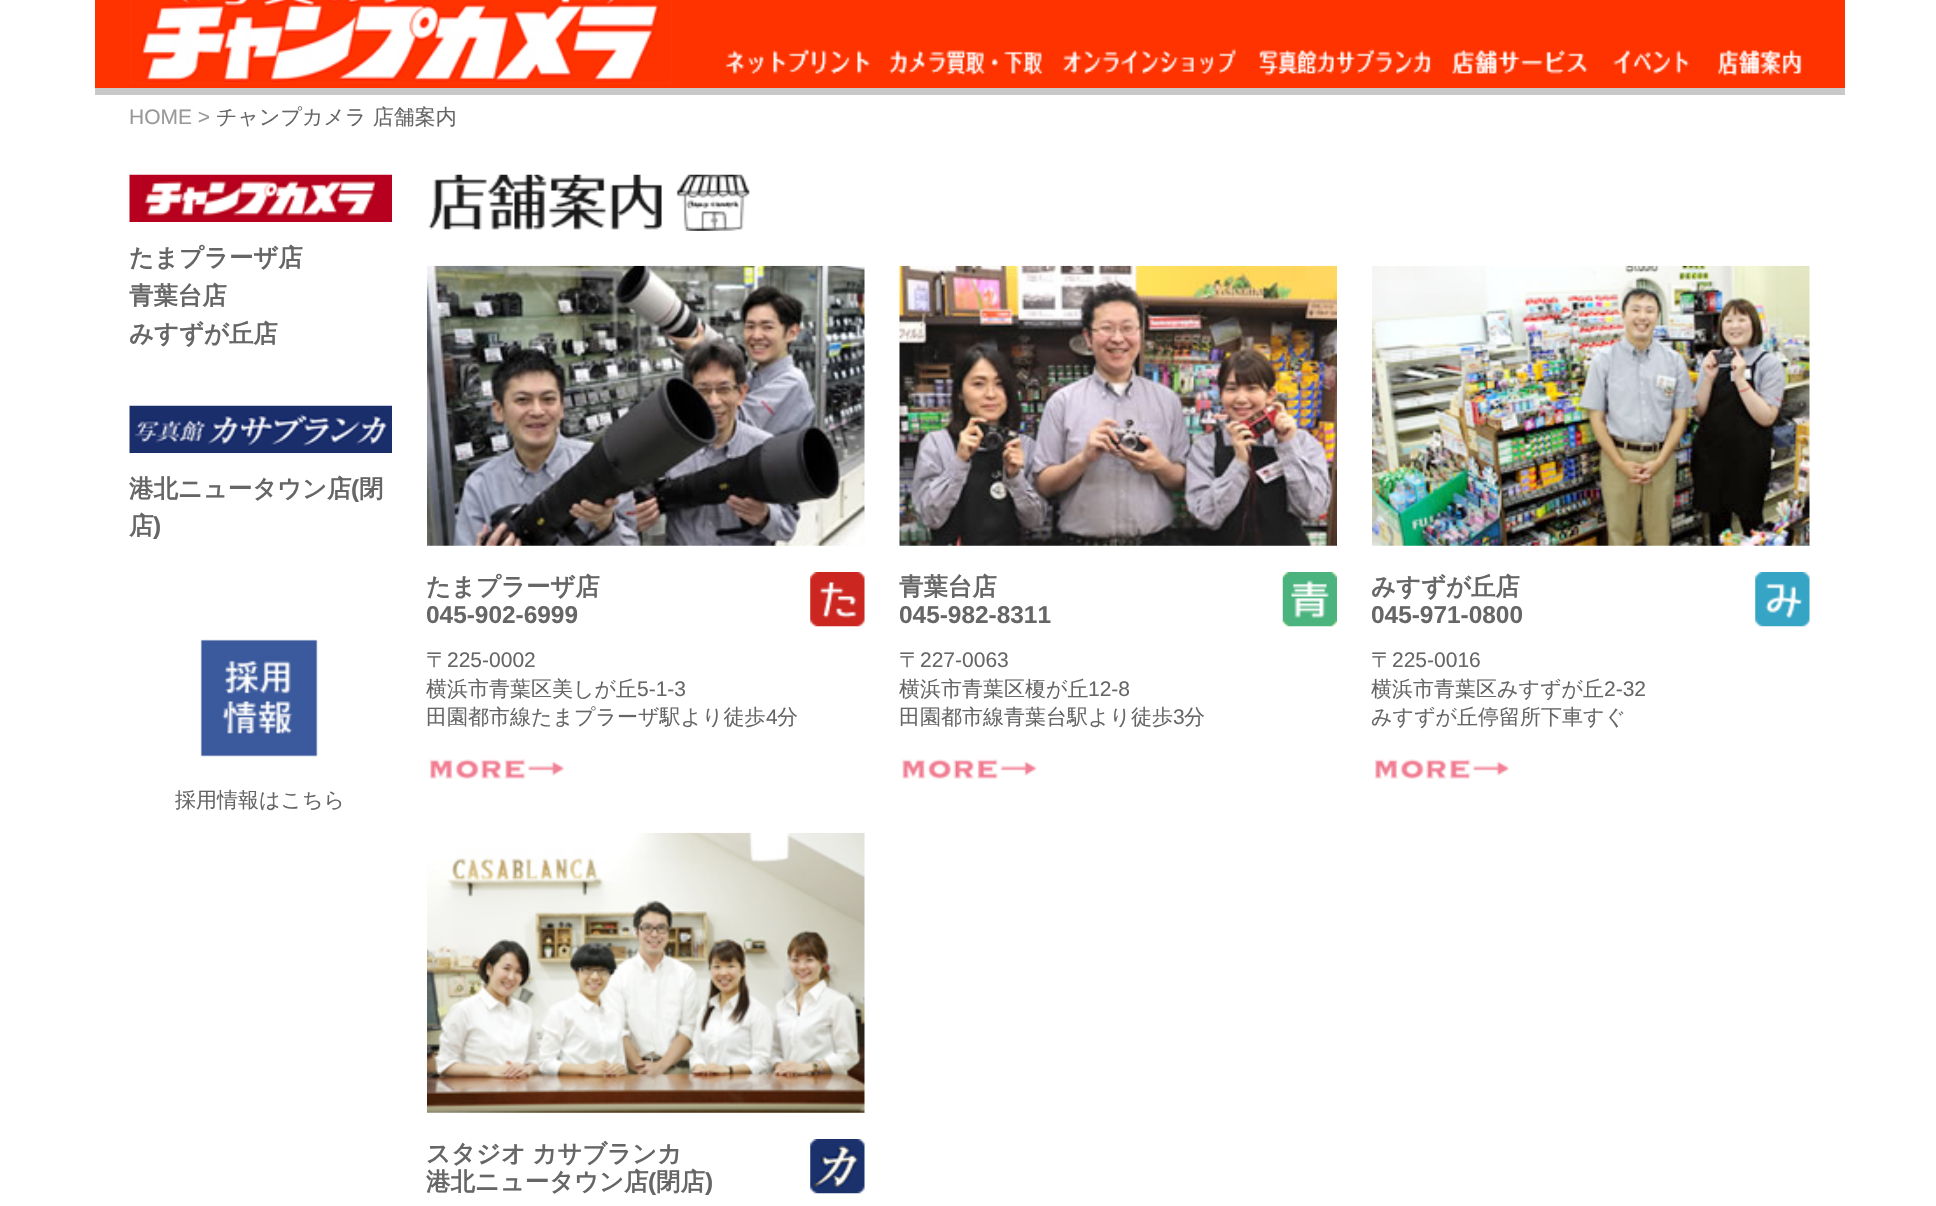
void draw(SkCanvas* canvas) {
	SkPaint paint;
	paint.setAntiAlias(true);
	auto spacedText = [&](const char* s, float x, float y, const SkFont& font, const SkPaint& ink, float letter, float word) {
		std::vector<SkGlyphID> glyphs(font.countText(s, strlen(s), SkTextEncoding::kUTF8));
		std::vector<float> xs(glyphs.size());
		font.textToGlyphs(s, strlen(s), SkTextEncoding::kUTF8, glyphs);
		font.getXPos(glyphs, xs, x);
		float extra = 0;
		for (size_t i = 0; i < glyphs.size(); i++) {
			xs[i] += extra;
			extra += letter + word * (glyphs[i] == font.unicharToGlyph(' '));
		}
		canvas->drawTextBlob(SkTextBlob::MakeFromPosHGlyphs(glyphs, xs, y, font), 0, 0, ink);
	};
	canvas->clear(0xffffffff);
	paint.setColor(0xffff3300);
	canvas->drawRect(SkRect::MakeXYWH(95, 0, 1750, 88), paint);
	paint.setColor(0xffc9c9c9);
	canvas->drawRect(SkRect::MakeXYWH(95, 88, 1750, 7), paint);
	canvas->drawImageRect(SkImages::DeferredFromEncodedData(SkData::MakeFromFileName("img1.png")), SkRect::MakeXYWH(130, 0, 542, 84), SkSamplingOptions());
	canvas->drawImageRect(SkImages::DeferredFromEncodedData(SkData::MakeFromFileName("img2.png")), SkRect::MakeXYWH(725, 48, 146, 26), SkSamplingOptions());
	canvas->drawImageRect(SkImages::DeferredFromEncodedData(SkData::MakeFromFileName("img3.png")), SkRect::MakeXYWH(888, 50, 156, 26), SkSamplingOptions());
	canvas->drawImageRect(SkImages::DeferredFromEncodedData(SkData::MakeFromFileName("img4.png")), SkRect::MakeXYWH(1063, 48, 173, 26), SkSamplingOptions());
	canvas->drawImageRect(SkImages::DeferredFromEncodedData(SkData::MakeFromFileName("img5.png")), SkRect::MakeXYWH(1259, 48, 172, 28), SkSamplingOptions());
	canvas->drawImageRect(SkImages::DeferredFromEncodedData(SkData::MakeFromFileName("img6.png")), SkRect::MakeXYWH(1452, 50, 136, 24), SkSamplingOptions());
	canvas->drawImageRect(SkImages::DeferredFromEncodedData(SkData::MakeFromFileName("img7.png")), SkRect::MakeXYWH(1613, 50, 77, 24), SkSamplingOptions());
	canvas->drawImageRect(SkImages::DeferredFromEncodedData(SkData::MakeFromFileName("img8.png")), SkRect::MakeXYWH(1718, 50, 84, 26), SkSamplingOptions());
	SkFont f1(fontMgr->matchFamilyStyle("Liberation Sans", SkFontStyle::Normal()), 21);
	f1.setSubpixel(true);
	paint.setColor(0xff999999);
	canvas->drawString("HOME >", 129, 124, f1, paint);
	SkFont f2(fontMgr->matchFamilyStyle("WenQuanYi Zen Hei", SkFontStyle(500, SkFontStyle::kNormal_Width, SkFontStyle::kUpright_Slant)), 21);
	f2.setSubpixel(true);
	paint.setColor(0xff666666);
	canvas->drawString("チャンプカメラ 店舗案内", 216, 124, f2, paint);
	canvas->drawImageRect(SkImages::DeferredFromEncodedData(SkData::MakeFromFileName("img9.png")), SkRect::MakeXYWH(129, 174, 263, 48), SkSamplingOptions());
	SkFont f3(fontMgr->matchFamilyStyle("WenQuanYi Zen Hei", SkFontStyle::Bold()), 24.4);
	f3.setSubpixel(true);
	canvas->drawString("たまプラーザ店", 129, 266, f3, paint);
	canvas->drawString("青葉台店", 129, 304, f3, paint);
	canvas->drawString("みすずが丘店", 129, 342, f3, paint);
	canvas->drawImageRect(SkImages::DeferredFromEncodedData(SkData::MakeFromFileName("img10.png")), SkRect::MakeXYWH(129, 405, 263, 48), SkSamplingOptions());
	canvas->drawString("港北ニュータウン店", 129, 497, f3, paint);
	SkFont f4(fontMgr->matchFamilyStyle("Liberation Sans", SkFontStyle::Bold()), 24.4);
	f4.setSubpixel(true);
	canvas->drawString("(", 351, 497, f4, paint);
	canvas->drawString("閉", 359, 497, f3, paint);
	canvas->drawString("店", 129, 534, f3, paint);
	canvas->drawString(")", 153, 534, f4, paint);
	canvas->drawImageRect(SkImages::DeferredFromEncodedData(SkData::MakeFromFileName("img11.png")), SkRect::MakeXYWH(200, 639, 118, 118), SkSamplingOptions());
	canvas->drawString("採用情報はこちら", 175, 807, f2, paint);
	canvas->drawImageRect(SkImages::DeferredFromEncodedData(SkData::MakeFromFileName("img12.png")), SkRect::MakeXYWH(428, 174, 322, 57), SkSamplingOptions());
	canvas->drawImageRect(SkImages::DeferredFromEncodedData(SkData::MakeFromFileName("img13.png")), SkRect::MakeXYWH(427, 265, 438, 281), SkSamplingOptions());
	canvas->drawString("たまプラーザ店", 426, 595, f3, paint);
	canvas->drawString("045-902-6999", 426, 623, f4, paint);
	canvas->drawImageRect(SkImages::DeferredFromEncodedData(SkData::MakeFromFileName("img14.png")), SkRect::MakeXYWH(810, 572, 55, 55), SkSamplingOptions());
	canvas->drawString("〒", 426, 667, f2, paint);
	canvas->drawString("225-0002", 447, 667, f1, paint);
	canvas->drawString("横浜市青葉区美しが丘", 426, 696, f2, paint);
	canvas->drawString("5-1-3", 637, 696, f1, paint);
	canvas->drawString("田園都市線たまプラーザ駅より徒歩", 426, 724, f2, paint);
	canvas->drawString("4", 766, 724, f1, paint);
	canvas->drawString("分", 777, 724, f2, paint);
	canvas->drawImageRect(SkImages::DeferredFromEncodedData(SkData::MakeFromFileName("img15.png")), SkRect::MakeXYWH(429, 759, 135, 20), SkSamplingOptions());
	canvas->drawImageRect(SkImages::DeferredFromEncodedData(SkData::MakeFromFileName("img16.png")), SkRect::MakeXYWH(899, 265, 438, 281), SkSamplingOptions());
	canvas->drawString("青葉台店", 899, 595, f3, paint);
	canvas->drawString("045-982-8311", 899, 623, f4, paint);
	canvas->drawImageRect(SkImages::DeferredFromEncodedData(SkData::MakeFromFileName("img17.png")), SkRect::MakeXYWH(1282, 572, 55, 55), SkSamplingOptions());
	canvas->drawString("〒", 899, 667, f2, paint);
	canvas->drawString("227-0063", 920, 667, f1, paint);
	canvas->drawString("横浜市青葉区榎が丘", 899, 696, f2, paint);
	canvas->drawString("12-8", 1088, 696, f1, paint);
	canvas->drawString("田園都市線青葉台駅より徒歩", 899, 724, f2, paint);
	canvas->drawString("3", 1173, 724, f1, paint);
	canvas->drawString("分", 1184, 724, f2, paint);
	canvas->drawImageRect(SkImages::DeferredFromEncodedData(SkData::MakeFromFileName("img18.png")), SkRect::MakeXYWH(901, 759, 136, 20), SkSamplingOptions());
	canvas->drawImageRect(SkImages::DeferredFromEncodedData(SkData::MakeFromFileName("img19.png")), SkRect::MakeXYWH(1372, 265, 438, 281), SkSamplingOptions());
	canvas->drawString("みすずが丘店", 1371, 595, f3, paint);
	canvas->drawString("045-971-0800", 1371, 623, f4, paint);
	canvas->drawImageRect(SkImages::DeferredFromEncodedData(SkData::MakeFromFileName("img20.png")), SkRect::MakeXYWH(1755, 572, 55, 55), SkSamplingOptions());
	canvas->drawString("〒", 1371, 667, f2, paint);
	canvas->drawString("225-0016", 1392, 667, f1, paint);
	canvas->drawString("横浜市青葉区みすずが丘", 1371, 696, f2, paint);
	canvas->drawString("2-32", 1604, 696, f1, paint);
	canvas->drawString("みすずが丘停留所下車すぐ", 1371, 724, f2, paint);
	canvas->drawImageRect(SkImages::DeferredFromEncodedData(SkData::MakeFromFileName("img15.png")), SkRect::MakeXYWH(1374, 759, 135, 20), SkSamplingOptions());
	canvas->drawImageRect(SkImages::DeferredFromEncodedData(SkData::MakeFromFileName("img21.png")), SkRect::MakeXYWH(427, 832, 438, 281), SkSamplingOptions());
	spacedText("スタジオ カサブランカ", 426, 1162, f3, paint, 0, -1);
	canvas->drawString("港北ニュータウン店", 426, 1190, f3, paint);
	canvas->drawString("(", 648, 1190, f4, paint);
	canvas->drawString("閉店", 656, 1190, f3, paint);
	canvas->drawString(")", 705, 1190, f4, paint);
	canvas->drawImageRect(SkImages::DeferredFromEncodedData(SkData::MakeFromFileName("img22.png")), SkRect::MakeXYWH(810, 1139, 55, 55), SkSamplingOptions());
}
